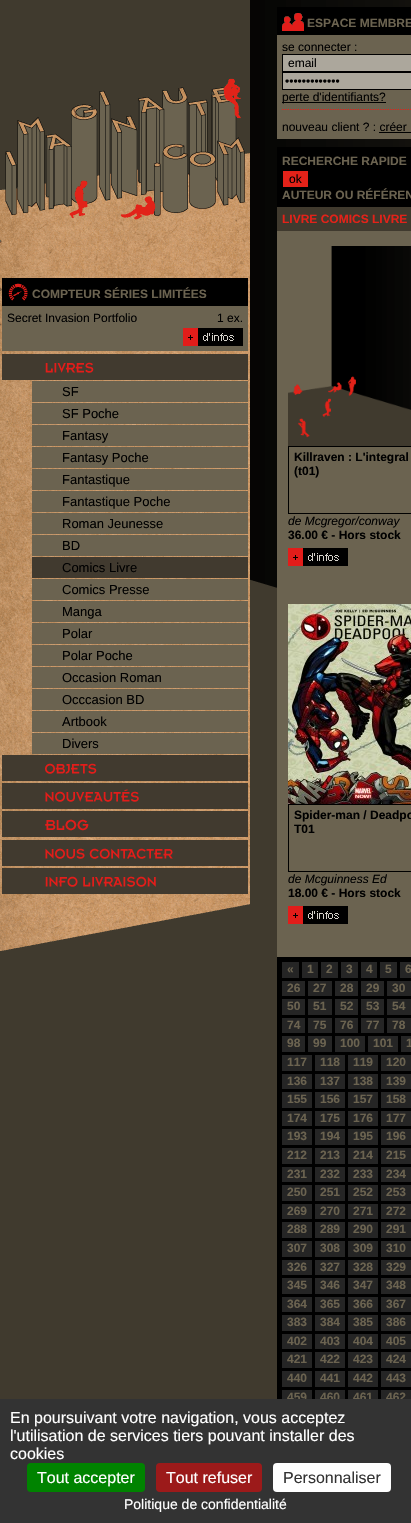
void draw(SkCanvas* canvas) {
	SkPaint paint;
	paint.setAntiAlias(true);
	auto svgPath = [&](const char* data, bool evenOdd = false) {
		SkPath result = *SkParsePath::FromSVGString(data);
		if (evenOdd) result.setFillType(SkPathFillType::kEvenOdd);
		return result;
	};
	canvas->clear(0xff403a2e);
	canvas->drawImageRect(SkImages::DeferredFromEncodedData(SkData::MakeFromFileName("img1.png")), SkRect::MakeXYWH(250, 0, 161, 665), SkSamplingOptions());
	canvas->drawImageRect(SkImages::DeferredFromEncodedData(SkData::MakeFromFileName("img2.png")), SkRect::MakeXYWH(0, 0, 250, 276), SkSamplingOptions());
	canvas->drawImageRect(SkImages::DeferredFromEncodedData(SkData::MakeFromFileName("img3.png")), SkRect::MakeXYWH(0, 276, 250, 622), SkSamplingOptions());
	paint.setColor(0xff000000);
	canvas->drawRect(SkRect::MakeXYWH(2, 278, 246, 28), paint);
	canvas->drawImageRect(SkImages::DeferredFromEncodedData(SkData::MakeFromFileName("img4.png")), SkRect::MakeXYWH(8, 283, 20, 18), SkSamplingOptions());
	SkFont f1(fontMgr->matchFamilyStyle("Liberation Sans", SkFontStyle::Bold()), 12);
	f1.setSubpixel(true);
	paint.setColor(0xff6b6350);
	canvas->drawString("COMPTEUR SÉRIES LIMITÉES", 32, 298, f1, paint);
	canvas->drawRect(SkRect::MakeXYWH(2, 306, 246, 45), paint);
	SkFont f2(fontMgr->matchFamilyStyle("Liberation Sans", SkFontStyle::Normal()), 12);
	f2.setSubpixel(true);
	paint.setColor(0xff000000);
	canvas->drawString("Secret Invasion Portfolio", 7, 322, f2, paint);
	canvas->drawString("1 ex.", 217, 322, f2, paint);
	canvas->drawImageRect(SkImages::DeferredFromEncodedData(SkData::MakeFromFileName("img5.png")), SkRect::MakeXYWH(183, 328, 60, 18), SkSamplingOptions());
	canvas->drawImageRect(SkImages::DeferredFromEncodedData(SkData::MakeFromFileName("img6.png")), SkRect::MakeXYWH(2, 354, 246, 26), SkSamplingOptions());
	paint.setColor(0xff6b6350);
	canvas->drawRect(SkRect::MakeXYWH(32, 381, 216, 21), paint);
	SkFont f3(fontMgr->matchFamilyStyle("Liberation Sans", SkFontStyle::Normal()), 13);
	f3.setSubpixel(true);
	paint.setColor(0xff000000);
	canvas->drawString("SF", 62, 396, f3, paint);
	paint.setColor(0xff6b6350);
	canvas->drawRect(SkRect::MakeXYWH(32, 403, 216, 21), paint);
	paint.setColor(0xff000000);
	canvas->drawString("SF Poche", 62, 418, f3, paint);
	paint.setColor(0xff6b6350);
	canvas->drawRect(SkRect::MakeXYWH(32, 425, 216, 21), paint);
	paint.setColor(0xff000000);
	canvas->drawString("Fantasy", 62, 440, f3, paint);
	paint.setColor(0xff6b6350);
	canvas->drawRect(SkRect::MakeXYWH(32, 447, 216, 21), paint);
	paint.setColor(0xff000000);
	canvas->drawString("Fantasy Poche", 62, 462, f3, paint);
	paint.setColor(0xff6b6350);
	canvas->drawRect(SkRect::MakeXYWH(32, 469, 216, 21), paint);
	paint.setColor(0xff000000);
	canvas->drawString("Fantastique", 62, 484, f3, paint);
	paint.setColor(0xff6b6350);
	canvas->drawRect(SkRect::MakeXYWH(32, 491, 216, 21), paint);
	paint.setColor(0xff000000);
	canvas->drawString("Fantastique Poche", 62, 506, f3, paint);
	paint.setColor(0xff6b6350);
	canvas->drawRect(SkRect::MakeXYWH(32, 513, 216, 21), paint);
	paint.setColor(0xff000000);
	canvas->drawString("Roman Jeunesse", 62, 528, f3, paint);
	paint.setColor(0xff6b6350);
	canvas->drawRect(SkRect::MakeXYWH(32, 535, 216, 21), paint);
	paint.setColor(0xff000000);
	canvas->drawString("BD", 62, 550, f3, paint);
	paint.setColor(0xff413a2f);
	canvas->drawRect(SkRect::MakeXYWH(32, 557, 216, 21), paint);
	paint.setColor(0xff000000);
	canvas->drawString("Comics Livre", 62, 572, f3, paint);
	paint.setColor(0xff6b6350);
	canvas->drawRect(SkRect::MakeXYWH(32, 579, 216, 21), paint);
	paint.setColor(0xff000000);
	canvas->drawString("Comics Presse", 62, 594, f3, paint);
	paint.setColor(0xff6b6350);
	canvas->drawRect(SkRect::MakeXYWH(32, 601, 216, 21), paint);
	paint.setColor(0xff000000);
	canvas->drawString("Manga", 62, 616, f3, paint);
	paint.setColor(0xff6b6350);
	canvas->drawRect(SkRect::MakeXYWH(32, 623, 216, 21), paint);
	paint.setColor(0xff000000);
	canvas->drawString("Polar", 62, 638, f3, paint);
	paint.setColor(0xff6b6350);
	canvas->drawRect(SkRect::MakeXYWH(32, 645, 216, 21), paint);
	paint.setColor(0xff000000);
	canvas->drawString("Polar Poche", 62, 660, f3, paint);
	paint.setColor(0xff6b6350);
	canvas->drawRect(SkRect::MakeXYWH(32, 667, 216, 21), paint);
	paint.setColor(0xff000000);
	canvas->drawString("Occasion Roman", 62, 682, f3, paint);
	paint.setColor(0xff6b6350);
	canvas->drawRect(SkRect::MakeXYWH(32, 689, 216, 21), paint);
	paint.setColor(0xff000000);
	canvas->drawString("Occcasion BD", 62, 704, f3, paint);
	paint.setColor(0xff6b6350);
	canvas->drawRect(SkRect::MakeXYWH(32, 711, 216, 21), paint);
	paint.setColor(0xff000000);
	canvas->drawString("Artbook", 62, 726, f3, paint);
	paint.setColor(0xff6b6350);
	canvas->drawRect(SkRect::MakeXYWH(32, 733, 216, 21), paint);
	paint.setColor(0xff000000);
	canvas->drawString("Divers", 62, 748, f3, paint);
	canvas->drawImageRect(SkImages::DeferredFromEncodedData(SkData::MakeFromFileName("img7.png")), SkRect::MakeXYWH(2, 755, 246, 26), SkSamplingOptions());
	canvas->drawImageRect(SkImages::DeferredFromEncodedData(SkData::MakeFromFileName("img8.png")), SkRect::MakeXYWH(2, 783, 246, 26), SkSamplingOptions());
	canvas->drawImageRect(SkImages::DeferredFromEncodedData(SkData::MakeFromFileName("img9.png")), SkRect::MakeXYWH(2, 811, 246, 26), SkSamplingOptions());
	canvas->drawImageRect(SkImages::DeferredFromEncodedData(SkData::MakeFromFileName("img10.png")), SkRect::MakeXYWH(2, 840, 246, 26), SkSamplingOptions());
	canvas->drawImageRect(SkImages::DeferredFromEncodedData(SkData::MakeFromFileName("img11.png")), SkRect::MakeXYWH(2, 868, 246, 26), SkSamplingOptions());
	canvas->drawImageRect(SkImages::DeferredFromEncodedData(SkData::MakeFromFileName("img12.png")), SkRect::MakeXYWH(0, 898, 250, 53), SkSamplingOptions());
	paint.setColor(0xff6b6350);
	canvas->drawRect(SkRect::MakeXYWH(277, 35, 134, 104), paint);
	paint.setColor(0xff000000);
	canvas->drawRect(SkRect::MakeXYWH(277, 7, 134, 28), paint);
	canvas->drawImageRect(SkImages::DeferredFromEncodedData(SkData::MakeFromFileName("img13.png")), SkRect::MakeXYWH(282, 13, 22, 18), SkSamplingOptions());
	paint.setColor(0xff6b6350);
	canvas->drawString("ESPACE MEMBRE", 307, 27, f1, paint);
	paint.setStroke(true);
	paint.setStrokeWidth(1);
	paint.setColor(0xffe32219);
	paint.setPathEffect(SkDashPathEffect::Make({{1, 1}}, 0));
	canvas->drawPath(svgPath("M282 109.5H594"), paint);
	paint.setPathEffect(nullptr);
	paint.setStroke(false);
	paint.setColor(0xff000000);
	canvas->drawString("se connecter :", 282, 51, f2, paint);
	paint.setColor(0xffaca79c);
	canvas->drawRect(SkRect::MakeXYWH(282.5, 54.5, 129, 17), paint);
	paint.setStroke(true);
	paint.setColor(0xff000000);
	canvas->drawRect(SkRect::MakeXYWH(282.5, 54.5, 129, 17), paint);
	paint.setStroke(false);
	canvas->drawString("email", 288, 67, f2, paint);
	paint.setColor(0xffaca79c);
	canvas->drawRect(SkRect::MakeXYWH(282.5, 72.5, 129, 17), paint);
	paint.setStroke(true);
	paint.setColor(0xff000000);
	canvas->drawRect(SkRect::MakeXYWH(282.5, 72.5, 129, 17), paint);
	paint.setStroke(false);
	canvas->drawString("•••••••••••••", 285, 85, f2, paint);
	canvas->drawRect(SkRect::MakeXYWH(282, 102, 104, 1), paint);
	canvas->drawString("perte d'identifiants?", 282, 101, f2, paint);
	canvas->drawString("nouveau client ? : créer", 282, 131, f2, paint);
	canvas->drawRect(SkRect::MakeXYWH(379, 132, 32, 1), paint);
	canvas->drawRect(SkRect::MakeXYWH(277, 147, 134, 60), paint);
	paint.setColor(0xff6b6350);
	canvas->drawString("RECHERCHE RAPIDE", 282, 165, f1, paint);
	paint.setColor(0xffe32219);
	canvas->drawRect(SkRect::MakeXYWH(283, 171, 25, 16), paint);
	paint.setColor(0xff000000);
	canvas->drawString("ok", 289, 183, f2, paint);
	paint.setColor(0xff6b6350);
	canvas->drawString("AUTEUR OU RÉFÉREN", 282, 199, f1, paint);
	paint.setColor(0xff403a2e);
	canvas->drawRect(SkRect::MakeXYWH(277, 207, 134, 24), paint);
	paint.setColor(0xffe32219);
	canvas->drawString("LIVRE COMICS LIVRE", 282, 223, f1, paint);
	paint.setColor(0xff6b6350);
	canvas->drawRect(SkRect::MakeXYWH(277, 231, 134, 726), paint);
	canvas->drawImageRect(SkImages::DeferredFromEncodedData(SkData::MakeFromFileName("img14.png")), SkRect::MakeXYWH(288, 246, 123, 200), SkSamplingOptions());
	paint.setStroke(true);
	paint.setColor(0xff000000);
	canvas->drawRect(SkRect::MakeXYWH(288.5, 446.5, 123, 67), paint);
	paint.setStroke(false);
	canvas->drawString("Killraven : L'integral", 294, 461, f1, paint);
	canvas->drawString("(t01)", 294, 475, f1, paint);
	SkFont f4(fontMgr->matchFamilyStyle("Liberation Sans", SkFontStyle::Italic()), 12);
	f4.setSubpixel(true);
	canvas->drawString("de Mcgregor/conway", 288, 525, f4, paint);
	canvas->drawString("36.00 € - Hors stock", 288, 539, f1, paint);
	canvas->drawImageRect(SkImages::DeferredFromEncodedData(SkData::MakeFromFileName("img5.png")), SkRect::MakeXYWH(288, 548, 60, 18), SkSamplingOptions());
	canvas->drawImageRect(SkImages::DeferredFromEncodedData(SkData::MakeFromFileName("img15.png")), SkRect::MakeXYWH(288, 604, 123, 200), SkSamplingOptions());
	paint.setStroke(true);
	canvas->drawRect(SkRect::MakeXYWH(288.5, 804.5, 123, 67), paint);
	paint.setStroke(false);
	canvas->drawString("Spider-man / Deadpo", 294, 819, f1, paint);
	canvas->drawString("T01", 294, 833, f1, paint);
	canvas->drawString("de Mcguinness Ed", 288, 883, f4, paint);
	canvas->drawString("18.00 € - Hors stock", 288, 897, f1, paint);
	canvas->drawImageRect(SkImages::DeferredFromEncodedData(SkData::MakeFromFileName("img5.png")), SkRect::MakeXYWH(288, 906, 60, 18), SkSamplingOptions());
	canvas->drawRect(SkRect::MakeXYWH(277, 957, 134, 442), paint);
	paint.setColor(0xff252525);
	canvas->drawRect(SkRect::MakeXYWH(282, 962, 17, 16), paint);
	paint.setColor(0xff6b6350);
	canvas->drawString("«", 287, 973, f1, paint);
	paint.setColor(0xff252525);
	canvas->drawRect(SkRect::MakeXYWH(302, 962, 16, 16), paint);
	paint.setColor(0xff6b6350);
	canvas->drawString("1", 307, 973, f1, paint);
	paint.setColor(0xff252525);
	canvas->drawRect(SkRect::MakeXYWH(321, 962, 17, 16), paint);
	paint.setColor(0xff6b6350);
	canvas->drawString("2", 326, 973, f1, paint);
	paint.setColor(0xff252525);
	canvas->drawRect(SkRect::MakeXYWH(341, 962, 17, 16), paint);
	paint.setColor(0xff6b6350);
	canvas->drawString("3", 346, 973, f1, paint);
	paint.setColor(0xff252525);
	canvas->drawRect(SkRect::MakeXYWH(361, 962, 16, 16), paint);
	paint.setColor(0xff6b6350);
	canvas->drawString("4", 366, 973, f1, paint);
	paint.setColor(0xff252525);
	canvas->drawRect(SkRect::MakeXYWH(380, 962, 17, 16), paint);
	paint.setColor(0xff6b6350);
	canvas->drawString("5", 385, 973, f1, paint);
	paint.setColor(0xff252525);
	canvas->drawRect(SkRect::MakeXYWH(400, 962, 11, 16), paint);
	paint.setColor(0xff6b6350);
	canvas->drawString("6", 405, 973, f1, paint);
	paint.setColor(0xff252525);
	canvas->drawRect(SkRect::MakeXYWH(282, 981, 23, 15), paint);
	paint.setColor(0xff6b6350);
	canvas->drawString("26", 287, 992, f1, paint);
	paint.setColor(0xff252525);
	canvas->drawRect(SkRect::MakeXYWH(308, 981, 24, 15), paint);
	paint.setColor(0xff6b6350);
	canvas->drawString("27", 313, 992, f1, paint);
	paint.setColor(0xff252525);
	canvas->drawRect(SkRect::MakeXYWH(335, 981, 23, 15), paint);
	paint.setColor(0xff6b6350);
	canvas->drawString("28", 340, 992, f1, paint);
	paint.setColor(0xff252525);
	canvas->drawRect(SkRect::MakeXYWH(361, 981, 23, 15), paint);
	paint.setColor(0xff6b6350);
	canvas->drawString("29", 366, 992, f1, paint);
	paint.setColor(0xff252525);
	canvas->drawRect(SkRect::MakeXYWH(387, 981, 24, 15), paint);
	paint.setColor(0xff6b6350);
	canvas->drawString("30", 392, 992, f1, paint);
	paint.setColor(0xff252525);
	canvas->drawRect(SkRect::MakeXYWH(282, 999, 23, 16), paint);
	paint.setColor(0xff6b6350);
	canvas->drawString("50", 287, 1010, f1, paint);
	paint.setColor(0xff252525);
	canvas->drawRect(SkRect::MakeXYWH(308, 999, 24, 16), paint);
	paint.setColor(0xff6b6350);
	canvas->drawString("51", 313, 1010, f1, paint);
	paint.setColor(0xff252525);
	canvas->drawRect(SkRect::MakeXYWH(335, 999, 23, 16), paint);
	paint.setColor(0xff6b6350);
	canvas->drawString("52", 340, 1010, f1, paint);
	paint.setColor(0xff252525);
	canvas->drawRect(SkRect::MakeXYWH(361, 999, 23, 16), paint);
	paint.setColor(0xff6b6350);
	canvas->drawString("53", 366, 1010, f1, paint);
	paint.setColor(0xff252525);
	canvas->drawRect(SkRect::MakeXYWH(387, 999, 24, 16), paint);
	paint.setColor(0xff6b6350);
	canvas->drawString("54", 392, 1010, f1, paint);
	paint.setColor(0xff252525);
	canvas->drawRect(SkRect::MakeXYWH(282, 1018, 23, 15), paint);
	paint.setColor(0xff6b6350);
	canvas->drawString("74", 287, 1029, f1, paint);
	paint.setColor(0xff252525);
	canvas->drawRect(SkRect::MakeXYWH(308, 1018, 24, 15), paint);
	paint.setColor(0xff6b6350);
	canvas->drawString("75", 313, 1029, f1, paint);
	paint.setColor(0xff252525);
	canvas->drawRect(SkRect::MakeXYWH(335, 1018, 23, 15), paint);
	paint.setColor(0xff6b6350);
	canvas->drawString("76", 340, 1029, f1, paint);
	paint.setColor(0xff252525);
	canvas->drawRect(SkRect::MakeXYWH(361, 1018, 23, 15), paint);
	paint.setColor(0xff6b6350);
	canvas->drawString("77", 366, 1029, f1, paint);
	paint.setColor(0xff252525);
	canvas->drawRect(SkRect::MakeXYWH(387, 1018, 24, 15), paint);
	paint.setColor(0xff6b6350);
	canvas->drawString("78", 392, 1029, f1, paint);
	paint.setColor(0xff252525);
	canvas->drawRect(SkRect::MakeXYWH(282, 1036, 23, 16), paint);
	paint.setColor(0xff6b6350);
	canvas->drawString("98", 287, 1047, f1, paint);
	paint.setColor(0xff252525);
	canvas->drawRect(SkRect::MakeXYWH(308, 1036, 24, 16), paint);
	paint.setColor(0xff6b6350);
	canvas->drawString("99", 313, 1047, f1, paint);
	paint.setColor(0xff252525);
	canvas->drawRect(SkRect::MakeXYWH(335, 1036, 30, 16), paint);
	paint.setColor(0xff6b6350);
	canvas->drawString("100", 340, 1047, f1, paint);
	paint.setColor(0xff252525);
	canvas->drawRect(SkRect::MakeXYWH(368, 1036, 30, 16), paint);
	paint.setColor(0xff6b6350);
	canvas->drawString("101", 373, 1047, f1, paint);
	paint.setColor(0xff252525);
	canvas->drawRect(SkRect::MakeXYWH(401, 1036, 10, 16), paint);
	paint.setColor(0xff6b6350);
	canvas->drawString("1", 406, 1047, f1, paint);
	paint.setColor(0xff252525);
	canvas->drawRect(SkRect::MakeXYWH(282, 1055, 30, 16), paint);
	paint.setColor(0xff6b6350);
	canvas->drawString("117", 287, 1066, f1, paint);
	paint.setColor(0xff252525);
	canvas->drawRect(SkRect::MakeXYWH(315, 1055, 30, 16), paint);
	paint.setColor(0xff6b6350);
	canvas->drawString("118", 320, 1066, f1, paint);
	paint.setColor(0xff252525);
	canvas->drawRect(SkRect::MakeXYWH(348, 1055, 30, 16), paint);
	paint.setColor(0xff6b6350);
	canvas->drawString("119", 353, 1066, f1, paint);
	paint.setColor(0xff252525);
	canvas->drawRect(SkRect::MakeXYWH(381, 1055, 30, 16), paint);
	paint.setColor(0xff6b6350);
	canvas->drawString("120", 386, 1066, f1, paint);
	paint.setColor(0xff252525);
	canvas->drawRect(SkRect::MakeXYWH(282, 1074, 30, 15), paint);
	paint.setColor(0xff6b6350);
	canvas->drawString("136", 287, 1085, f1, paint);
	paint.setColor(0xff252525);
	canvas->drawRect(SkRect::MakeXYWH(315, 1074, 30, 15), paint);
	paint.setColor(0xff6b6350);
	canvas->drawString("137", 320, 1085, f1, paint);
	paint.setColor(0xff252525);
	canvas->drawRect(SkRect::MakeXYWH(348, 1074, 30, 15), paint);
	paint.setColor(0xff6b6350);
	canvas->drawString("138", 353, 1085, f1, paint);
	paint.setColor(0xff252525);
	canvas->drawRect(SkRect::MakeXYWH(381, 1074, 30, 15), paint);
	paint.setColor(0xff6b6350);
	canvas->drawString("139", 386, 1085, f1, paint);
	paint.setColor(0xff252525);
	canvas->drawRect(SkRect::MakeXYWH(282, 1092, 30, 16), paint);
	paint.setColor(0xff6b6350);
	canvas->drawString("155", 287, 1103, f1, paint);
	paint.setColor(0xff252525);
	canvas->drawRect(SkRect::MakeXYWH(315, 1092, 30, 16), paint);
	paint.setColor(0xff6b6350);
	canvas->drawString("156", 320, 1103, f1, paint);
	paint.setColor(0xff252525);
	canvas->drawRect(SkRect::MakeXYWH(348, 1092, 30, 16), paint);
	paint.setColor(0xff6b6350);
	canvas->drawString("157", 353, 1103, f1, paint);
	paint.setColor(0xff252525);
	canvas->drawRect(SkRect::MakeXYWH(381, 1092, 30, 16), paint);
	paint.setColor(0xff6b6350);
	canvas->drawString("158", 386, 1103, f1, paint);
	paint.setColor(0xff252525);
	canvas->drawRect(SkRect::MakeXYWH(282, 1111, 30, 15), paint);
	paint.setColor(0xff6b6350);
	canvas->drawString("174", 287, 1122, f1, paint);
	paint.setColor(0xff252525);
	canvas->drawRect(SkRect::MakeXYWH(315, 1111, 30, 15), paint);
	paint.setColor(0xff6b6350);
	canvas->drawString("175", 320, 1122, f1, paint);
	paint.setColor(0xff252525);
	canvas->drawRect(SkRect::MakeXYWH(348, 1111, 30, 15), paint);
	paint.setColor(0xff6b6350);
	canvas->drawString("176", 353, 1122, f1, paint);
	paint.setColor(0xff252525);
	canvas->drawRect(SkRect::MakeXYWH(381, 1111, 30, 15), paint);
	paint.setColor(0xff6b6350);
	canvas->drawString("177", 386, 1122, f1, paint);
	paint.setColor(0xff252525);
	canvas->drawRect(SkRect::MakeXYWH(282, 1129, 30, 16), paint);
	paint.setColor(0xff6b6350);
	canvas->drawString("193", 287, 1140, f1, paint);
	paint.setColor(0xff252525);
	canvas->drawRect(SkRect::MakeXYWH(315, 1129, 30, 16), paint);
	paint.setColor(0xff6b6350);
	canvas->drawString("194", 320, 1140, f1, paint);
	paint.setColor(0xff252525);
	canvas->drawRect(SkRect::MakeXYWH(348, 1129, 30, 16), paint);
	paint.setColor(0xff6b6350);
	canvas->drawString("195", 353, 1140, f1, paint);
	paint.setColor(0xff252525);
	canvas->drawRect(SkRect::MakeXYWH(381, 1129, 30, 16), paint);
	paint.setColor(0xff6b6350);
	canvas->drawString("196", 386, 1140, f1, paint);
	paint.setColor(0xff252525);
	canvas->drawRect(SkRect::MakeXYWH(282, 1148, 30, 16), paint);
	paint.setColor(0xff6b6350);
	canvas->drawString("212", 287, 1159, f1, paint);
	paint.setColor(0xff252525);
	canvas->drawRect(SkRect::MakeXYWH(315, 1148, 30, 16), paint);
	paint.setColor(0xff6b6350);
	canvas->drawString("213", 320, 1159, f1, paint);
	paint.setColor(0xff252525);
	canvas->drawRect(SkRect::MakeXYWH(348, 1148, 30, 16), paint);
	paint.setColor(0xff6b6350);
	canvas->drawString("214", 353, 1159, f1, paint);
	paint.setColor(0xff252525);
	canvas->drawRect(SkRect::MakeXYWH(381, 1148, 30, 16), paint);
	paint.setColor(0xff6b6350);
	canvas->drawString("215", 386, 1159, f1, paint);
	paint.setColor(0xff252525);
	canvas->drawRect(SkRect::MakeXYWH(282, 1167, 30, 15), paint);
	paint.setColor(0xff6b6350);
	canvas->drawString("231", 287, 1178, f1, paint);
	paint.setColor(0xff252525);
	canvas->drawRect(SkRect::MakeXYWH(315, 1167, 30, 15), paint);
	paint.setColor(0xff6b6350);
	canvas->drawString("232", 320, 1178, f1, paint);
	paint.setColor(0xff252525);
	canvas->drawRect(SkRect::MakeXYWH(348, 1167, 30, 15), paint);
	paint.setColor(0xff6b6350);
	canvas->drawString("233", 353, 1178, f1, paint);
	paint.setColor(0xff252525);
	canvas->drawRect(SkRect::MakeXYWH(381, 1167, 30, 15), paint);
	paint.setColor(0xff6b6350);
	canvas->drawString("234", 386, 1178, f1, paint);
	paint.setColor(0xff252525);
	canvas->drawRect(SkRect::MakeXYWH(282, 1185, 30, 16), paint);
	paint.setColor(0xff6b6350);
	canvas->drawString("250", 287, 1196, f1, paint);
	paint.setColor(0xff252525);
	canvas->drawRect(SkRect::MakeXYWH(315, 1185, 30, 16), paint);
	paint.setColor(0xff6b6350);
	canvas->drawString("251", 320, 1196, f1, paint);
	paint.setColor(0xff252525);
	canvas->drawRect(SkRect::MakeXYWH(348, 1185, 30, 16), paint);
	paint.setColor(0xff6b6350);
	canvas->drawString("252", 353, 1196, f1, paint);
	paint.setColor(0xff252525);
	canvas->drawRect(SkRect::MakeXYWH(381, 1185, 30, 16), paint);
	paint.setColor(0xff6b6350);
	canvas->drawString("253", 386, 1196, f1, paint);
	paint.setColor(0xff252525);
	canvas->drawRect(SkRect::MakeXYWH(282, 1204, 30, 15), paint);
	paint.setColor(0xff6b6350);
	canvas->drawString("269", 287, 1215, f1, paint);
	paint.setColor(0xff252525);
	canvas->drawRect(SkRect::MakeXYWH(315, 1204, 30, 15), paint);
	paint.setColor(0xff6b6350);
	canvas->drawString("270", 320, 1215, f1, paint);
	paint.setColor(0xff252525);
	canvas->drawRect(SkRect::MakeXYWH(348, 1204, 30, 15), paint);
	paint.setColor(0xff6b6350);
	canvas->drawString("271", 353, 1215, f1, paint);
	paint.setColor(0xff252525);
	canvas->drawRect(SkRect::MakeXYWH(381, 1204, 30, 15), paint);
	paint.setColor(0xff6b6350);
	canvas->drawString("272", 386, 1215, f1, paint);
	paint.setColor(0xff252525);
	canvas->drawRect(SkRect::MakeXYWH(282, 1222, 30, 16), paint);
	paint.setColor(0xff6b6350);
	canvas->drawString("288", 287, 1233, f1, paint);
	paint.setColor(0xff252525);
	canvas->drawRect(SkRect::MakeXYWH(315, 1222, 30, 16), paint);
	paint.setColor(0xff6b6350);
	canvas->drawString("289", 320, 1233, f1, paint);
	paint.setColor(0xff252525);
	canvas->drawRect(SkRect::MakeXYWH(348, 1222, 30, 16), paint);
	paint.setColor(0xff6b6350);
	canvas->drawString("290", 353, 1233, f1, paint);
	paint.setColor(0xff252525);
	canvas->drawRect(SkRect::MakeXYWH(381, 1222, 30, 16), paint);
	paint.setColor(0xff6b6350);
	canvas->drawString("291", 386, 1233, f1, paint);
	paint.setColor(0xff252525);
	canvas->drawRect(SkRect::MakeXYWH(282, 1241, 30, 16), paint);
	paint.setColor(0xff6b6350);
	canvas->drawString("307", 287, 1252, f1, paint);
	paint.setColor(0xff252525);
	canvas->drawRect(SkRect::MakeXYWH(315, 1241, 30, 16), paint);
	paint.setColor(0xff6b6350);
	canvas->drawString("308", 320, 1252, f1, paint);
	paint.setColor(0xff252525);
	canvas->drawRect(SkRect::MakeXYWH(348, 1241, 30, 16), paint);
	paint.setColor(0xff6b6350);
	canvas->drawString("309", 353, 1252, f1, paint);
	paint.setColor(0xff252525);
	canvas->drawRect(SkRect::MakeXYWH(381, 1241, 30, 16), paint);
	paint.setColor(0xff6b6350);
	canvas->drawString("310", 386, 1252, f1, paint);
	paint.setColor(0xff252525);
	canvas->drawRect(SkRect::MakeXYWH(282, 1260, 30, 15), paint);
	paint.setColor(0xff6b6350);
	canvas->drawString("326", 287, 1271, f1, paint);
	paint.setColor(0xff252525);
	canvas->drawRect(SkRect::MakeXYWH(315, 1260, 30, 15), paint);
	paint.setColor(0xff6b6350);
	canvas->drawString("327", 320, 1271, f1, paint);
	paint.setColor(0xff252525);
	canvas->drawRect(SkRect::MakeXYWH(348, 1260, 30, 15), paint);
	paint.setColor(0xff6b6350);
	canvas->drawString("328", 353, 1271, f1, paint);
	paint.setColor(0xff252525);
	canvas->drawRect(SkRect::MakeXYWH(381, 1260, 30, 15), paint);
	paint.setColor(0xff6b6350);
	canvas->drawString("329", 386, 1271, f1, paint);
	paint.setColor(0xff252525);
	canvas->drawRect(SkRect::MakeXYWH(282, 1278, 30, 16), paint);
	paint.setColor(0xff6b6350);
	canvas->drawString("345", 287, 1289, f1, paint);
	paint.setColor(0xff252525);
	canvas->drawRect(SkRect::MakeXYWH(315, 1278, 30, 16), paint);
	paint.setColor(0xff6b6350);
	canvas->drawString("346", 320, 1289, f1, paint);
	paint.setColor(0xff252525);
	canvas->drawRect(SkRect::MakeXYWH(348, 1278, 30, 16), paint);
	paint.setColor(0xff6b6350);
	canvas->drawString("347", 353, 1289, f1, paint);
	paint.setColor(0xff252525);
	canvas->drawRect(SkRect::MakeXYWH(381, 1278, 30, 16), paint);
	paint.setColor(0xff6b6350);
	canvas->drawString("348", 386, 1289, f1, paint);
	paint.setColor(0xff252525);
	canvas->drawRect(SkRect::MakeXYWH(282, 1297, 30, 15), paint);
	paint.setColor(0xff6b6350);
	canvas->drawString("364", 287, 1308, f1, paint);
	paint.setColor(0xff252525);
	canvas->drawRect(SkRect::MakeXYWH(315, 1297, 30, 15), paint);
	paint.setColor(0xff6b6350);
	canvas->drawString("365", 320, 1308, f1, paint);
	paint.setColor(0xff252525);
	canvas->drawRect(SkRect::MakeXYWH(348, 1297, 30, 15), paint);
	paint.setColor(0xff6b6350);
	canvas->drawString("366", 353, 1308, f1, paint);
	paint.setColor(0xff252525);
	canvas->drawRect(SkRect::MakeXYWH(381, 1297, 30, 15), paint);
	paint.setColor(0xff6b6350);
	canvas->drawString("367", 386, 1308, f1, paint);
	paint.setColor(0xff252525);
	canvas->drawRect(SkRect::MakeXYWH(282, 1315, 30, 16), paint);
	paint.setColor(0xff6b6350);
	canvas->drawString("383", 287, 1326, f1, paint);
	paint.setColor(0xff252525);
	canvas->drawRect(SkRect::MakeXYWH(315, 1315, 30, 16), paint);
	paint.setColor(0xff6b6350);
	canvas->drawString("384", 320, 1326, f1, paint);
	paint.setColor(0xff252525);
	canvas->drawRect(SkRect::MakeXYWH(348, 1315, 30, 16), paint);
	paint.setColor(0xff6b6350);
	canvas->drawString("385", 353, 1326, f1, paint);
	paint.setColor(0xff252525);
	canvas->drawRect(SkRect::MakeXYWH(381, 1315, 30, 16), paint);
	paint.setColor(0xff6b6350);
	canvas->drawString("386", 386, 1326, f1, paint);
	paint.setColor(0xff252525);
	canvas->drawRect(SkRect::MakeXYWH(282, 1334, 30, 15), paint);
	paint.setColor(0xff6b6350);
	canvas->drawString("402", 287, 1345, f1, paint);
	paint.setColor(0xff252525);
	canvas->drawRect(SkRect::MakeXYWH(315, 1334, 30, 15), paint);
	paint.setColor(0xff6b6350);
	canvas->drawString("403", 320, 1345, f1, paint);
	paint.setColor(0xff252525);
	canvas->drawRect(SkRect::MakeXYWH(348, 1334, 30, 15), paint);
	paint.setColor(0xff6b6350);
	canvas->drawString("404", 353, 1345, f1, paint);
	paint.setColor(0xff252525);
	canvas->drawRect(SkRect::MakeXYWH(381, 1334, 30, 15), paint);
	paint.setColor(0xff6b6350);
	canvas->drawString("405", 386, 1345, f1, paint);
	paint.setColor(0xff252525);
	canvas->drawRect(SkRect::MakeXYWH(282, 1352, 30, 16), paint);
	paint.setColor(0xff6b6350);
	canvas->drawString("421", 287, 1363, f1, paint);
	paint.setColor(0xff252525);
	canvas->drawRect(SkRect::MakeXYWH(315, 1352, 30, 16), paint);
	paint.setColor(0xff6b6350);
	canvas->drawString("422", 320, 1363, f1, paint);
	paint.setColor(0xff252525);
	canvas->drawRect(SkRect::MakeXYWH(348, 1352, 30, 16), paint);
	paint.setColor(0xff6b6350);
	canvas->drawString("423", 353, 1363, f1, paint);
	paint.setColor(0xff252525);
	canvas->drawRect(SkRect::MakeXYWH(381, 1352, 30, 16), paint);
	paint.setColor(0xff6b6350);
	canvas->drawString("424", 386, 1363, f1, paint);
	paint.setColor(0xff252525);
	canvas->drawRect(SkRect::MakeXYWH(282, 1371, 30, 16), paint);
	paint.setColor(0xff6b6350);
	canvas->drawString("440", 287, 1382, f1, paint);
	paint.setColor(0xff252525);
	canvas->drawRect(SkRect::MakeXYWH(315, 1371, 30, 16), paint);
	paint.setColor(0xff6b6350);
	canvas->drawString("441", 320, 1382, f1, paint);
	paint.setColor(0xff252525);
	canvas->drawRect(SkRect::MakeXYWH(348, 1371, 30, 16), paint);
	paint.setColor(0xff6b6350);
	canvas->drawString("442", 353, 1382, f1, paint);
	paint.setColor(0xff252525);
	canvas->drawRect(SkRect::MakeXYWH(381, 1371, 30, 16), paint);
	paint.setColor(0xff6b6350);
	canvas->drawString("443", 386, 1382, f1, paint);
	paint.setColor(0xff252525);
	canvas->drawRect(SkRect::MakeXYWH(282, 1390, 30, 9), paint);
	paint.setColor(0xff6b6350);
	canvas->drawString("459", 287, 1401, f1, paint);
	paint.setColor(0xff252525);
	canvas->drawRect(SkRect::MakeXYWH(315, 1390, 30, 9), paint);
	paint.setColor(0xff6b6350);
	canvas->drawString("460", 320, 1401, f1, paint);
	paint.setColor(0xff252525);
	canvas->drawRect(SkRect::MakeXYWH(348, 1390, 30, 9), paint);
	paint.setColor(0xff6b6350);
	canvas->drawString("461", 353, 1401, f1, paint);
	paint.setColor(0xff252525);
	canvas->drawRect(SkRect::MakeXYWH(381, 1390, 30, 9), paint);
	paint.setColor(0xff6b6350);
	canvas->drawString("462", 386, 1401, f1, paint);
	paint.setColor(0xff333333);
	canvas->drawRect(SkRect::MakeXYWH(0, 1399, 411, 124), paint);
	SkFont f5(fontMgr->matchFamilyStyle("Liberation Sans", SkFontStyle::Normal()), 16);
	f5.setSubpixel(true);
	paint.setColor(0xffffffff);
	canvas->drawString("En poursuivant votre navigation, vous acceptez", 10, 1423, f5, paint);
	canvas->drawString("l'utilisation de services tiers pouvant installer des", 10, 1441, f5, paint);
	canvas->drawString("cookies", 10, 1459, f5, paint);
	paint.setColor(0xff008300);
	canvas->drawRoundRect(SkRect::MakeXYWH(27, 1463, 118, 29), 4, 4, paint);
	paint.setColor(0xffffffff);
	canvas->drawString("Tout accepter", 37, 1483, f5, paint);
	paint.setColor(0xff9c1a1a);
	canvas->drawRoundRect(SkRect::MakeXYWH(156, 1463, 106, 29), 4, 4, paint);
	paint.setColor(0xffffffff);
	canvas->drawString("Tout refuser", 166, 1483, f5, paint);
	canvas->drawRoundRect(SkRect::MakeXYWH(273, 1463, 118, 29), 4, 4, paint);
	paint.setColor(0xff333333);
	canvas->drawString("Personnaliser", 283, 1483, f5, paint);
	SkFont f6(fontMgr->matchFamilyStyle("Liberation Sans", SkFontStyle::Normal()), 14);
	f6.setSubpixel(true);
	paint.setColor(0xffffffff);
	canvas->drawString("Politique de confidentialité", 124, 1509, f6, paint);
}
